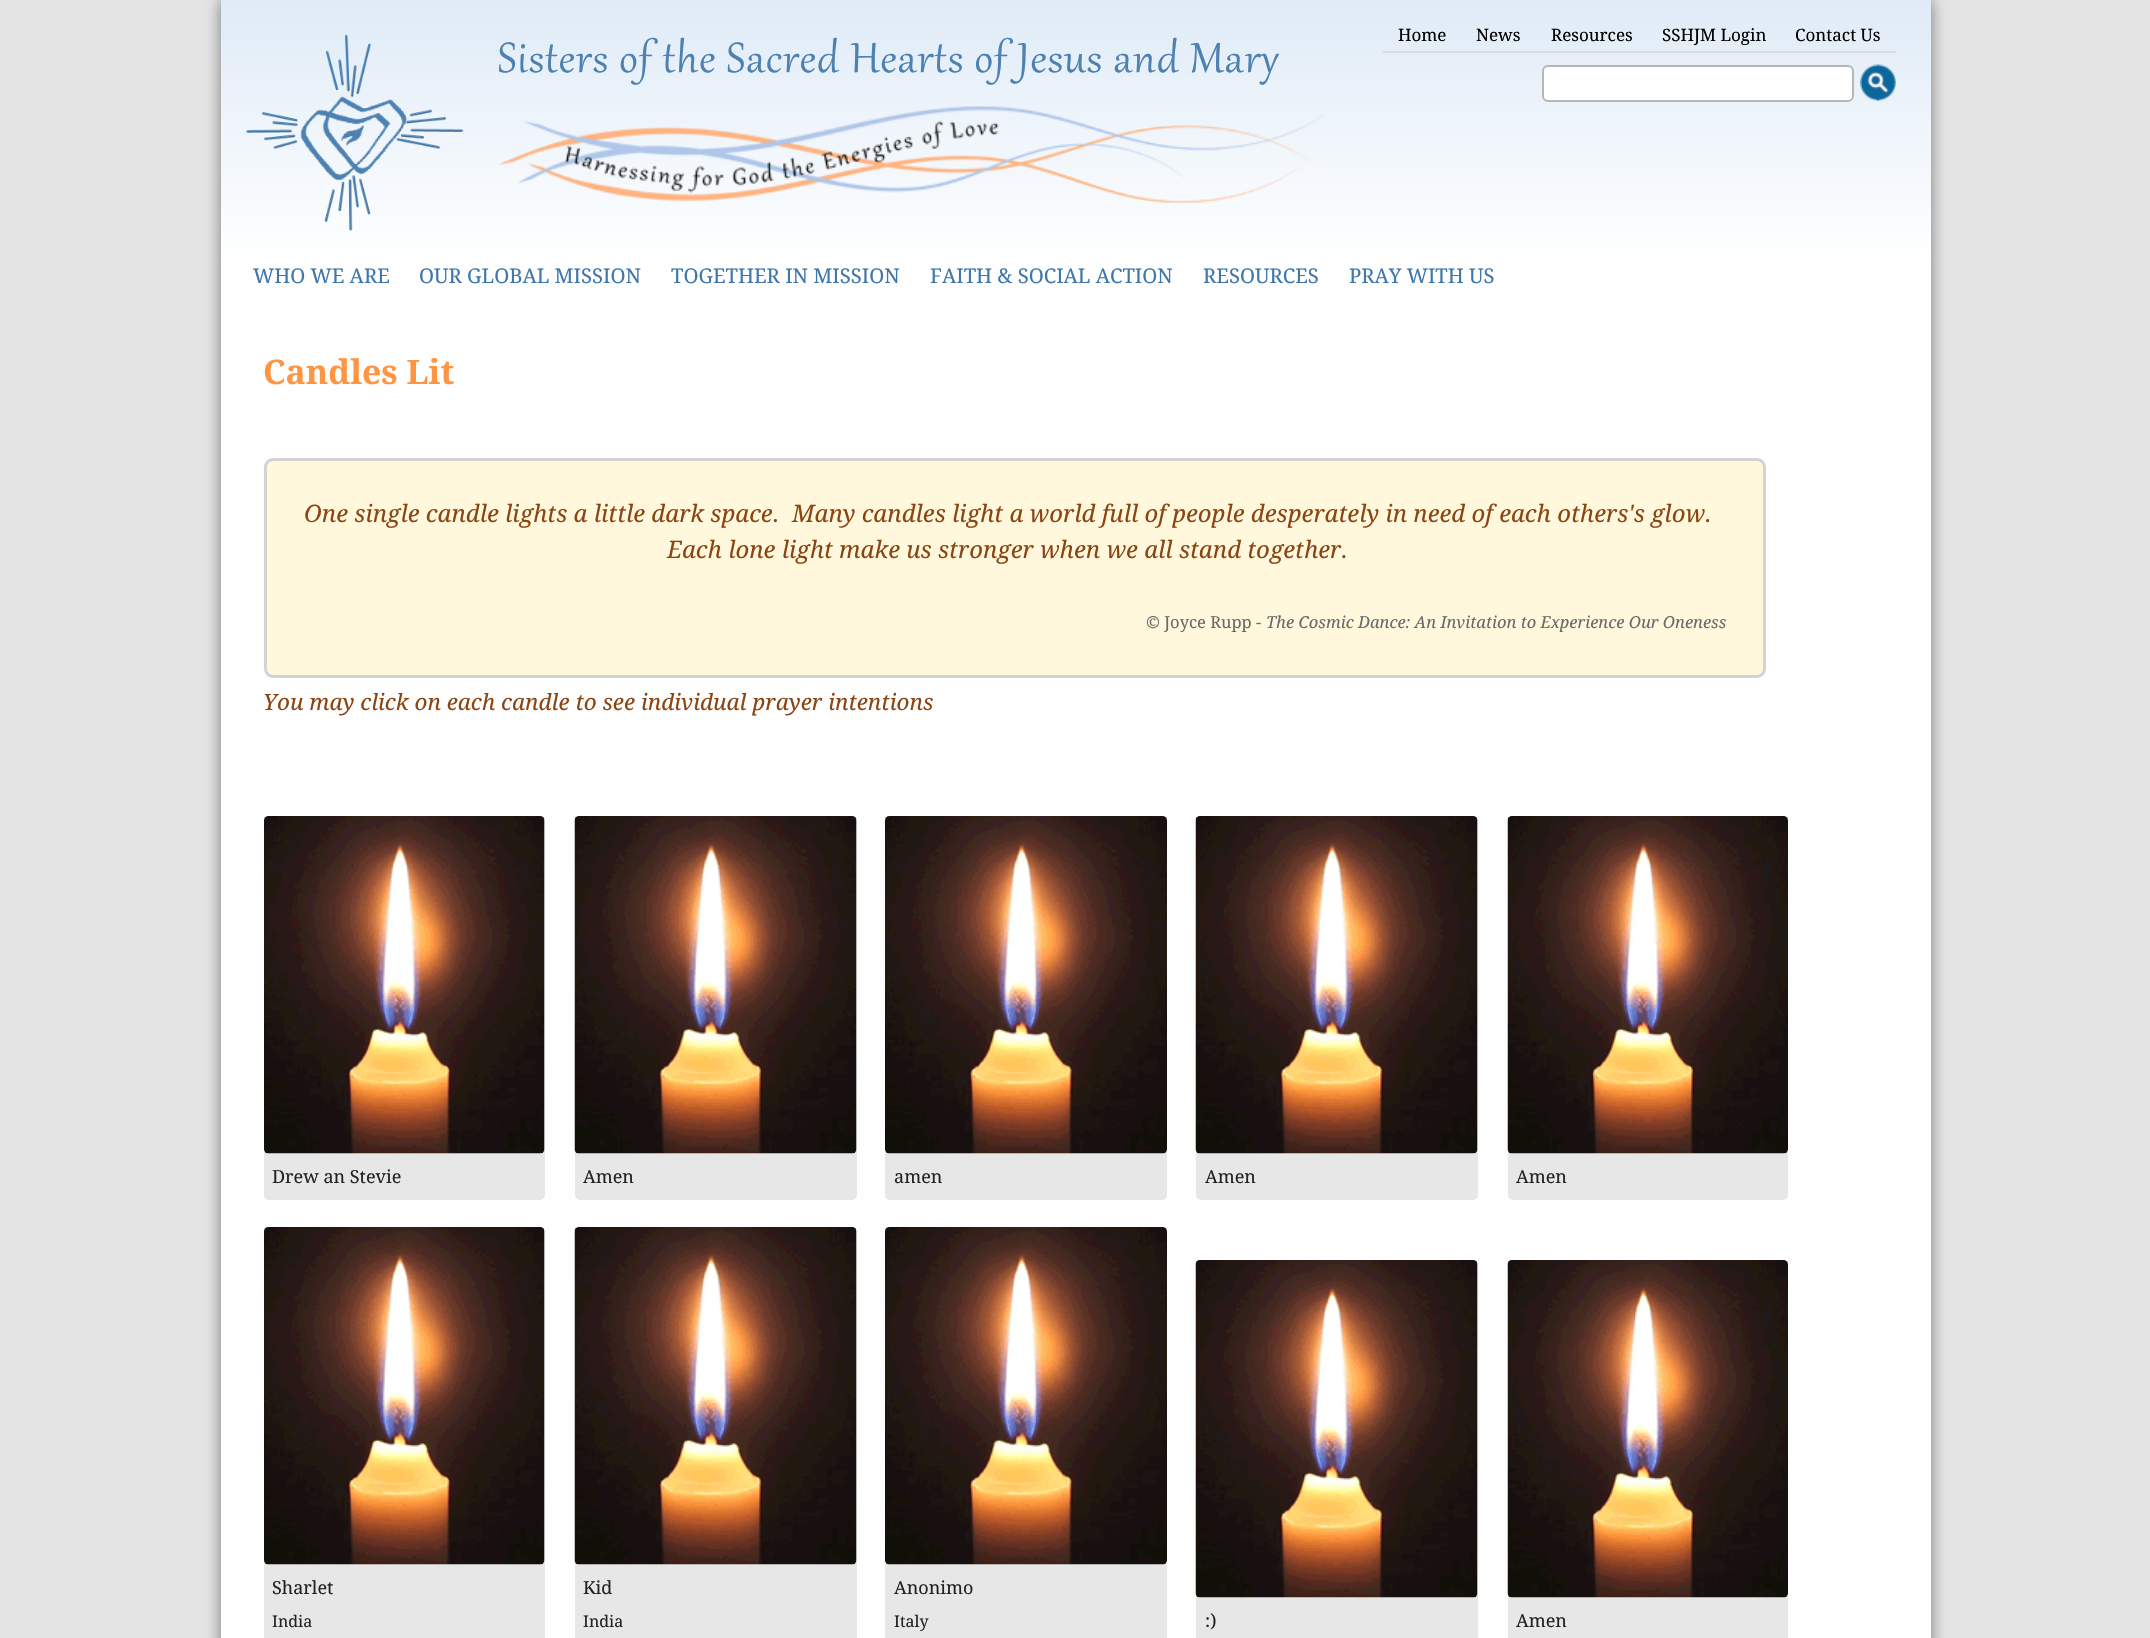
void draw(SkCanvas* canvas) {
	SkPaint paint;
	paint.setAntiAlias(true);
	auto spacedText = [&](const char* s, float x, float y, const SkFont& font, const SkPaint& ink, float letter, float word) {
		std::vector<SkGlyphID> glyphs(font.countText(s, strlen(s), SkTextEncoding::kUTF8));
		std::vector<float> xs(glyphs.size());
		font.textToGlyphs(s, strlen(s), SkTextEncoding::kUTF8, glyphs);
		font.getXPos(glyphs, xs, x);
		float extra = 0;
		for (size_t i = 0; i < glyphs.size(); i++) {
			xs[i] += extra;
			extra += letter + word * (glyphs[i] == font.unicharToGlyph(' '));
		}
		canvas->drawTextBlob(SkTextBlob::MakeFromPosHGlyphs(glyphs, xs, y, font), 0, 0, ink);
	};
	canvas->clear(0xffe4e4e4);
	paint.setColor(0xb34c4c4c);
	paint.setMaskFilter(SkMaskFilter::MakeBlur(kNormal_SkBlurStyle, 7.5));
	canvas->drawRect(SkRect::MakeXYWH(221, 0, 1710, 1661), paint);
	paint.setMaskFilter(nullptr);
	paint.setColor(0xfffefeff);
	canvas->drawRect(SkRect::MakeXYWH(221, 261, 1710, 1377), paint);
	{
		const SkColor colors[] = {0xffdfebf7, 0xffffffff};
		const float stops[] = {0, 1};
		const SkPoint ends[] = {{1076, 0}, {1076, 261}};
		paint.setShader(SkGradientShader::MakeLinear(ends, colors, stops, 2, SkTileMode::kClamp));
		paint.setAlpha(255);
	}
	canvas->drawRect(SkRect::MakeXYWH(221, 0, 1710, 261), paint);
	canvas->drawImageRect(SkImages::DeferredFromEncodedData(SkData::MakeFromFileName("img1.png")), SkRect::MakeXYWH(246, 34, 218, 197), SkSamplingOptions());
	SkFont f1(fontMgr->matchFamilyStyle("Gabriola", SkFontStyle::Normal()), 51.75);
	f1.setSubpixel(true);
	paint.setShader(nullptr);
	paint.setColor(0xff4c81b1);
	spacedText("Sisters of the Sacred Hearts of Jesus and Mary", 498, 72, f1, paint, 1.3, 0);
	canvas->drawImageRect(SkImages::DeferredFromEncodedData(SkData::MakeFromFileName("img2.png")), SkRect::MakeXYWH(498, 106, 828, 97), SkSamplingOptions());
	paint.setColor(0xffdddddd);
	canvas->drawRect(SkRect::MakeXYWH(1383, 51, 513, 2), paint);
	SkFont f2(fontMgr->matchFamilyStyle("Droid Serif", SkFontStyle::Normal()), 17);
	f2.setSubpixel(true);
	paint.setColor(0xff000000);
	canvas->drawString("Home", 1398, 41, f2, paint);
	canvas->drawString("News", 1476, 41, f2, paint);
	canvas->drawString("Resources", 1551, 41, f2, paint);
	canvas->drawString("SSHJM Login", 1662, 41, f2, paint);
	canvas->drawString("Contact Us", 1795, 41, f2, paint);
	paint.setColor(0xffffffff);
	canvas->drawRoundRect(SkRect::MakeXYWH(1543, 66, 310, 35), 5, 5, paint);
	paint.setStroke(true);
	paint.setStrokeWidth(2);
	paint.setColor(0xffb6b6b6);
	canvas->drawRoundRect(SkRect::MakeXYWH(1543, 66, 310, 35), 5, 5, paint);
	canvas->drawImageRect(SkImages::DeferredFromEncodedData(SkData::MakeFromFileName("img3.png")), SkRect::MakeXYWH(1860, 64, 36, 37), SkSamplingOptions());
	SkFont f3(fontMgr->matchFamilyStyle("Droid Serif", SkFontStyle::Normal()), 20.25);
	f3.setSubpixel(true);
	paint.setStroke(false);
	paint.setColor(0xff3e77ab);
	canvas->drawString("WHO WE ARE", 253, 283, f3, paint);
	canvas->drawString("OUR GLOBAL MISSION", 419, 283, f3, paint);
	canvas->drawString("TOGETHER IN MISSION", 671, 283, f3, paint);
	canvas->drawString("FAITH & SOCIAL ACTION", 930, 283, f3, paint);
	canvas->drawString("RESOURCES", 1203, 283, f3, paint);
	canvas->drawString("PRAY WITH US", 1349, 283, f3, paint);
	SkFont f4(fontMgr->matchFamilyStyle("Droid Serif", SkFontStyle::Bold()), 33.75);
	f4.setSubpixel(true);
	paint.setColor(0xffff9441);
	canvas->drawString("Candles Lit", 263, 384, f4, paint);
	paint.setColor(0xfffff8dc);
	canvas->drawRoundRect(SkRect::MakeXYWH(265.5, 459.5, 1499, 217), 7.5, 7.5, paint);
	paint.setStroke(true);
	paint.setStrokeWidth(3);
	paint.setColor(0xffd3d3d3);
	canvas->drawRoundRect(SkRect::MakeXYWH(265.5, 459.5, 1499, 217), 7.5, 7.5, paint);
	SkFont f5(fontMgr->matchFamilyStyle("Droid Serif", SkFontStyle::Italic()), 24);
	f5.setSubpixel(true);
	paint.setStroke(false);
	paint.setColor(0xff8b4513);
	canvas->drawString("One single candle lights a little dark space.  Many candles light a world full of people desperately in need of each others's glow.", 304, 522, f5, paint);
	canvas->drawString("Each lone light make us stronger when we all stand together.", 667, 558, f5, paint);
	SkFont f6(fontMgr->matchFamilyStyle("Droid Serif", SkFontStyle::Normal()), 16.5);
	f6.setSubpixel(true);
	paint.setColor(0xff696969);
	canvas->drawString("© Joyce Rupp -", 1146, 628, f6, paint);
	SkFont f7(fontMgr->matchFamilyStyle("Droid Serif", SkFontStyle::Italic()), 16.5);
	f7.setSubpixel(true);
	canvas->drawString("The Cosmic Dance: An Invitation to Experience Our Oneness", 1266, 628, f7, paint);
	SkFont f8(fontMgr->matchFamilyStyle("Droid Serif", SkFontStyle::Italic()), 22.5);
	f8.setSubpixel(true);
	paint.setColor(0xff8b4513);
	canvas->drawString("You may click on each candle to see individual prayer intentions", 263, 710, f8, paint);
	paint.setColor(0xffe7e7e7);
	canvas->drawRoundRect(SkRect::MakeXYWH(264, 816, 281, 384), 5, 5, paint);
	canvas->drawImageRect(SkImages::DeferredFromEncodedData(SkData::MakeFromFileName("img4.png")), SkRect::MakeXYWH(264, 816, 281, 338), SkSamplingOptions());
	SkFont f9(fontMgr->matchFamilyStyle("Droid Serif", SkFontStyle::Normal()), 18);
	f9.setSubpixel(true);
	paint.setColor(0xff222222);
	canvas->drawString("Drew an Stevie", 272, 1183, f9, paint);
	paint.setColor(0xffe7e7e7);
	canvas->drawRoundRect(SkRect::MakeXYWH(575, 816, 282, 384), 5, 5, paint);
	canvas->drawImageRect(SkImages::DeferredFromEncodedData(SkData::MakeFromFileName("img5.png")), SkRect::MakeXYWH(574, 816, 283, 338), SkSamplingOptions());
	paint.setColor(0xff222222);
	canvas->drawString("Amen", 583, 1183, f9, paint);
	paint.setColor(0xffe7e7e7);
	canvas->drawRoundRect(SkRect::MakeXYWH(885, 816, 282, 384), 5, 5, paint);
	canvas->drawImageRect(SkImages::DeferredFromEncodedData(SkData::MakeFromFileName("img6.png")), SkRect::MakeXYWH(885, 816, 282, 338), SkSamplingOptions());
	paint.setColor(0xff222222);
	canvas->drawString("amen", 894, 1183, f9, paint);
	paint.setColor(0xffe7e7e7);
	canvas->drawRoundRect(SkRect::MakeXYWH(1196, 816, 282, 384), 5, 5, paint);
	canvas->drawImageRect(SkImages::DeferredFromEncodedData(SkData::MakeFromFileName("img5.png")), SkRect::MakeXYWH(1195, 816, 283, 338), SkSamplingOptions());
	paint.setColor(0xff222222);
	canvas->drawString("Amen", 1205, 1183, f9, paint);
	paint.setColor(0xffe7e7e7);
	canvas->drawRoundRect(SkRect::MakeXYWH(1508, 816, 280, 384), 5, 5, paint);
	canvas->drawImageRect(SkImages::DeferredFromEncodedData(SkData::MakeFromFileName("img7.png")), SkRect::MakeXYWH(1507, 816, 281, 338), SkSamplingOptions());
	paint.setColor(0xff222222);
	canvas->drawString("Amen", 1516, 1183, f9, paint);
	paint.setColor(0xffe7e7e7);
	canvas->drawRoundRect(SkRect::MakeXYWH(264, 1227, 281, 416), 5, 5, paint);
	canvas->drawImageRect(SkImages::DeferredFromEncodedData(SkData::MakeFromFileName("img4.png")), SkRect::MakeXYWH(264, 1227, 281, 338), SkSamplingOptions());
	paint.setColor(0xff222222);
	canvas->drawString("Sharlet", 272, 1594, f9, paint);
	SkFont f10(fontMgr->matchFamilyStyle("Droid Serif", SkFontStyle::Normal()), 16);
	f10.setSubpixel(true);
	canvas->drawString("India", 272, 1627, f10, paint);
	paint.setColor(0xffe7e7e7);
	canvas->drawRoundRect(SkRect::MakeXYWH(575, 1227, 282, 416), 5, 5, paint);
	canvas->drawImageRect(SkImages::DeferredFromEncodedData(SkData::MakeFromFileName("img5.png")), SkRect::MakeXYWH(574, 1227, 283, 338), SkSamplingOptions());
	paint.setColor(0xff222222);
	canvas->drawString("Kid", 583, 1594, f9, paint);
	canvas->drawString("India", 583, 1627, f10, paint);
	paint.setColor(0xffe7e7e7);
	canvas->drawRoundRect(SkRect::MakeXYWH(885, 1227, 282, 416), 5, 5, paint);
	canvas->drawImageRect(SkImages::DeferredFromEncodedData(SkData::MakeFromFileName("img6.png")), SkRect::MakeXYWH(885, 1227, 282, 338), SkSamplingOptions());
	paint.setColor(0xff222222);
	canvas->drawString("Anonimo", 894, 1594, f9, paint);
	canvas->drawString("Italy", 894, 1627, f10, paint);
	paint.setColor(0xffe7e7e7);
	canvas->drawRoundRect(SkRect::MakeXYWH(1196, 1260, 282, 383), 5, 5, paint);
	canvas->drawImageRect(SkImages::DeferredFromEncodedData(SkData::MakeFromFileName("img5.png")), SkRect::MakeXYWH(1195, 1260, 283, 338), SkSamplingOptions());
	paint.setColor(0xff222222);
	canvas->drawString(":)", 1205, 1627, f9, paint);
	paint.setColor(0xffe7e7e7);
	canvas->drawRoundRect(SkRect::MakeXYWH(1508, 1260, 280, 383), 5, 5, paint);
	canvas->drawImageRect(SkImages::DeferredFromEncodedData(SkData::MakeFromFileName("img7.png")), SkRect::MakeXYWH(1507, 1260, 281, 338), SkSamplingOptions());
	paint.setColor(0xff222222);
	canvas->drawString("Amen", 1516, 1627, f9, paint);
}
